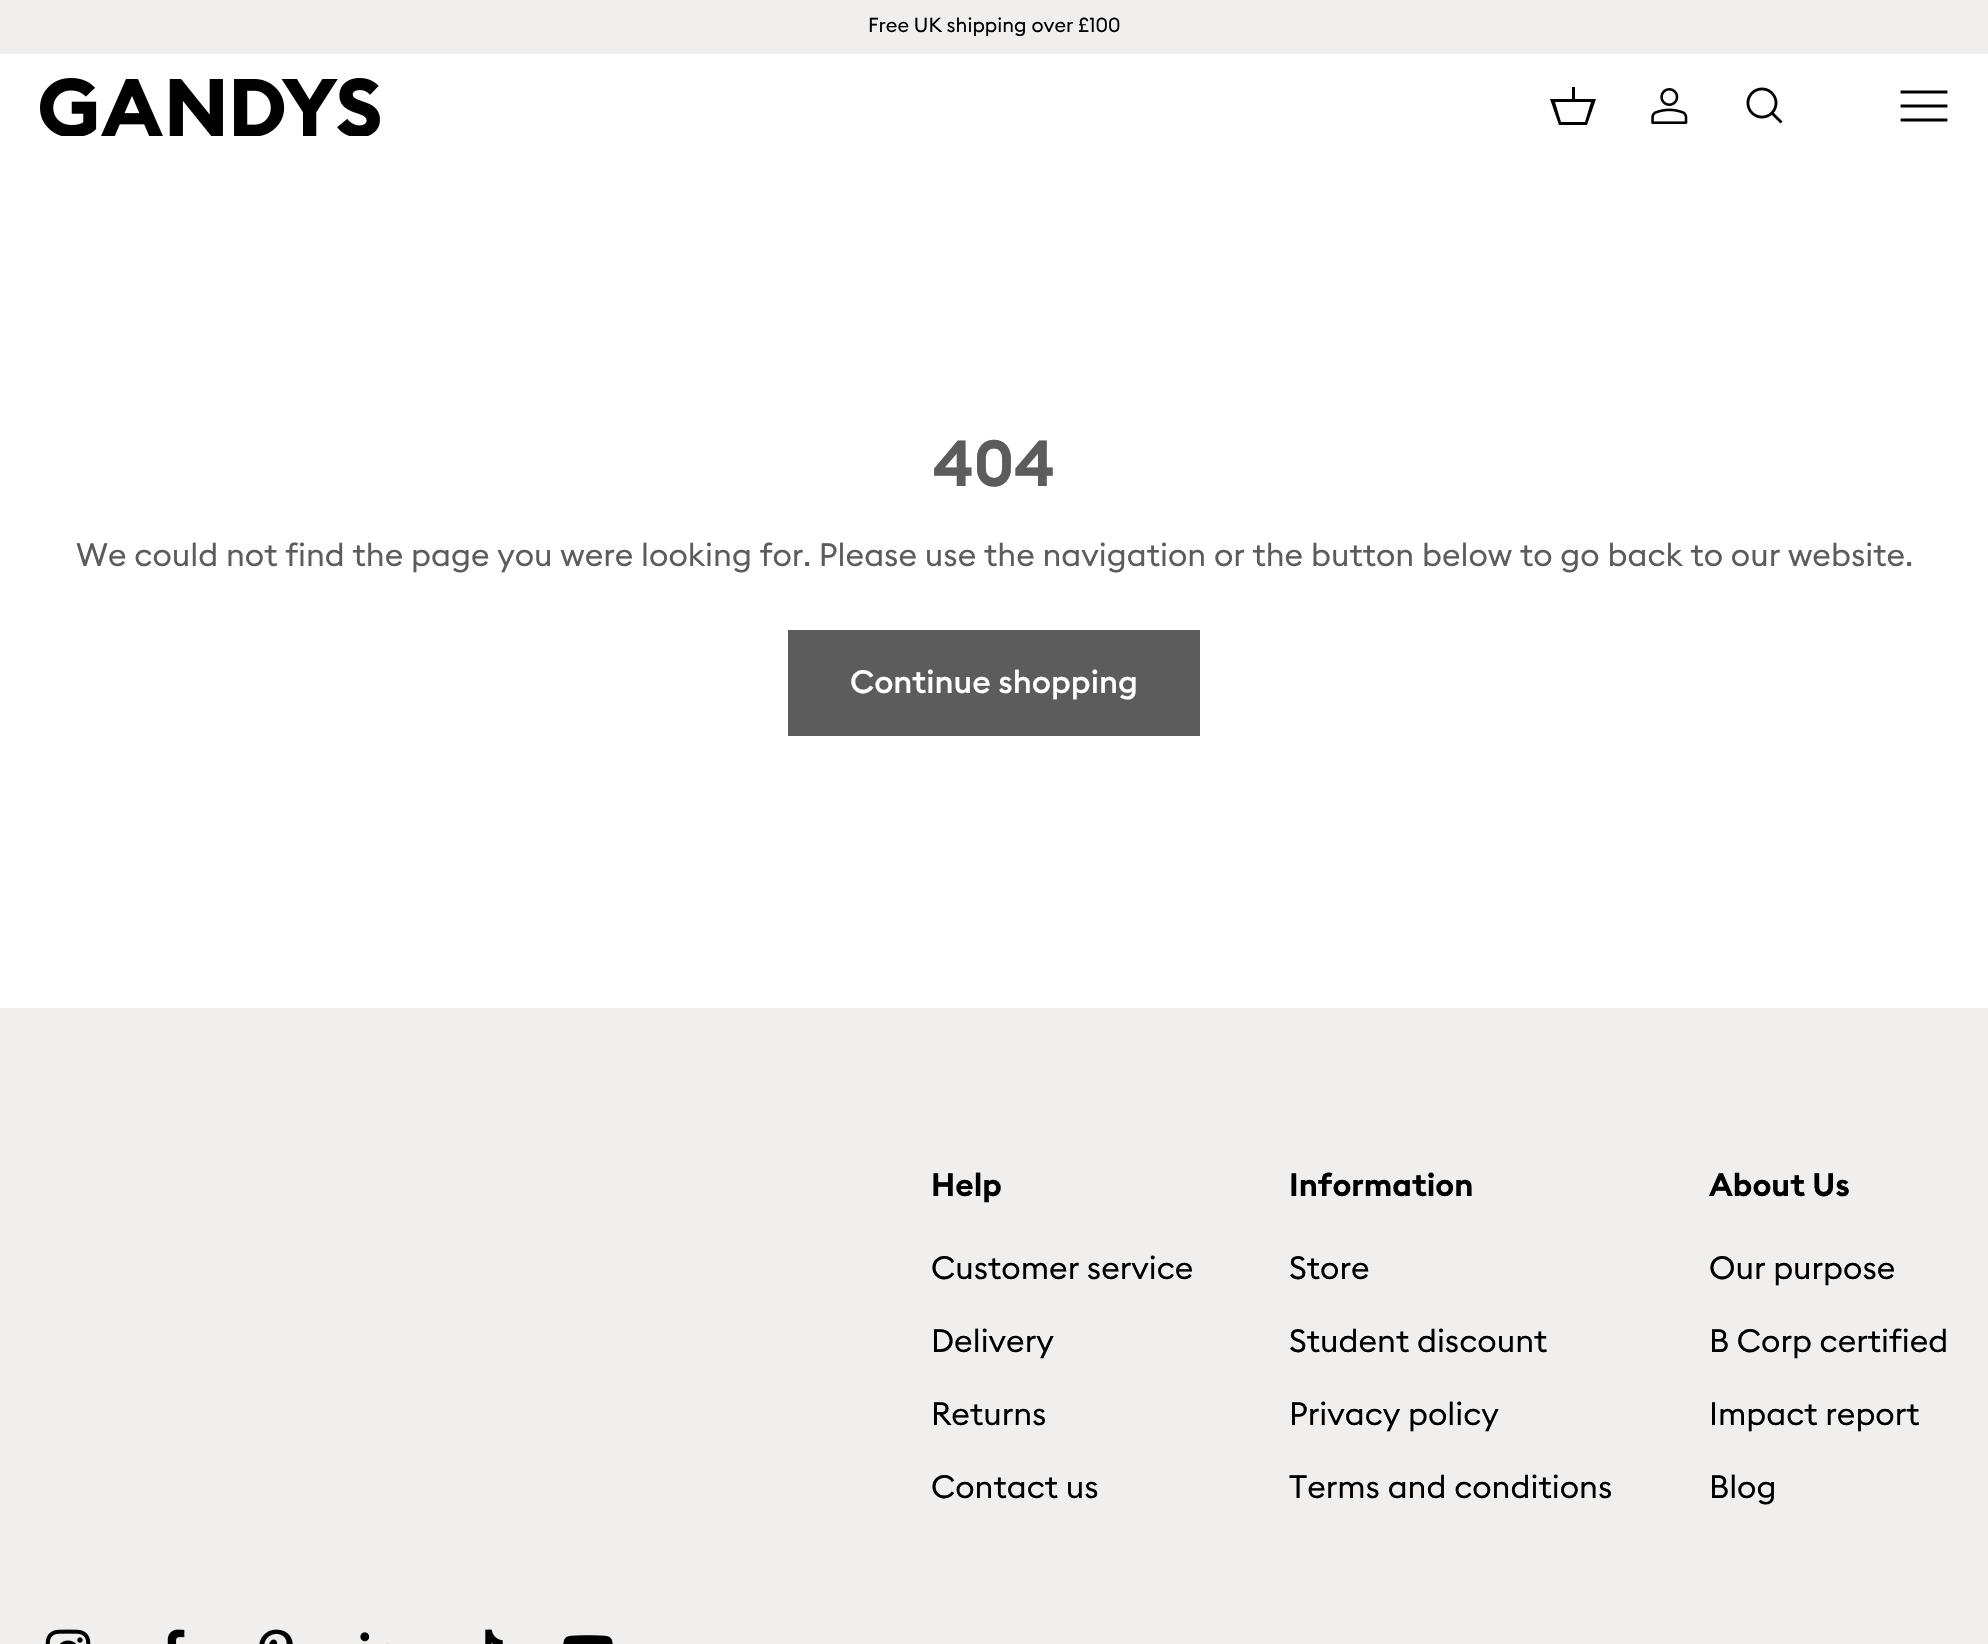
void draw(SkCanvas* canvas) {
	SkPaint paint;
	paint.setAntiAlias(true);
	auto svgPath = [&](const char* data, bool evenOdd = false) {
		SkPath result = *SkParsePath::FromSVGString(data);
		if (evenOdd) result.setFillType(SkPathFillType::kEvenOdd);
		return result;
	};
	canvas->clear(0xffffffff);
	paint.setColor(0xfff0efee);
	canvas->drawRect(SkRect::MakeXYWH(0, 0, 1988, 54), paint);
	SkFont f1(fontMgr->matchFamilyStyle("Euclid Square", SkFontStyle::Normal()), 20);
	f1.setSubpixel(true);
	paint.setColor(0xff000000);
	canvas->drawString("Free UK shipping over £100", 868, 32, f1, paint);
	canvas->drawImageRect(SkImages::DeferredFromEncodedData(SkData::MakeFromFileName("img1.png")), SkRect::MakeXYWH(40, 78, 340, 58), SkSamplingOptions());
	canvas->drawPath(svgPath("M1572 99V87H1575V99H1596L1587 125H1559L1550 99ZM1555 102L1561 122H1585L1591 102Z"), paint);
	canvas->drawImageRect(SkImages::DeferredFromEncodedData(SkData::MakeFromFileName("img2.png")), SkRect::MakeXYWH(1651, 88, 37, 36), SkSamplingOptions());
	canvas->drawImageRect(SkImages::DeferredFromEncodedData(SkData::MakeFromFileName("img3.png")), SkRect::MakeXYWH(1746, 87, 37, 37), SkSamplingOptions());
	paint.setStroke(true);
	paint.setStrokeWidth(2.8);
	paint.setStrokeCap(SkPaint::kSquare_Cap);
	canvas->drawPath(svgPath("M1902 120H1946M1902 106H1946M1902 92H1946"), paint);
	SkFont f2(fontMgr->matchFamilyStyle("Euclid Square", SkFontStyle(600, SkFontStyle::kNormal_Width, SkFontStyle::kUpright_Slant)), 64);
	f2.setSubpixel(true);
	paint.setStroke(false);
	paint.setColor(0xff5c5c5c);
	canvas->drawString("404", 933, 486, f2, paint);
	SkFont f3(fontMgr->matchFamilyStyle("Euclid Square", SkFontStyle::Normal()), 32);
	f3.setSubpixel(true);
	canvas->drawString("We could not find the page you were looking for. Please use the navigation or the button below to go back to our website.", 76, 566, f3, paint);
	canvas->drawRect(SkRect::MakeXYWH(789, 631, 410, 104), paint);
	paint.setStroke(true);
	paint.setStrokeWidth(2);
	paint.setStrokeCap(SkPaint::kButt_Cap);
	canvas->drawRect(SkRect::MakeXYWH(789, 631, 410, 104), paint);
	SkFont f4(fontMgr->matchFamilyStyle("Euclid Square", SkFontStyle(500, SkFontStyle::kNormal_Width, SkFontStyle::kUpright_Slant)), 32);
	f4.setSubpixel(true);
	paint.setStroke(false);
	paint.setColor(0xffffffff);
	canvas->drawString("Continue shopping", 850, 693, f4, paint);
	paint.setColor(0xfff0efee);
	canvas->drawRect(SkRect::MakeXYWH(0, 1008, 1988, 636), paint);
	SkFont f5(fontMgr->matchFamilyStyle("Euclid Square", SkFontStyle(600, SkFontStyle::kNormal_Width, SkFontStyle::kUpright_Slant)), 32);
	f5.setSubpixel(true);
	paint.setColor(0xff000000);
	canvas->drawString("Help", 931, 1196, f5, paint);
	canvas->drawString("Customer service", 931, 1279, f3, paint);
	canvas->drawString("Delivery", 931, 1352, f3, paint);
	canvas->drawString("Returns", 931, 1425, f3, paint);
	canvas->drawString("Contact us", 931, 1498, f3, paint);
	canvas->drawString("Information", 1289, 1196, f5, paint);
	canvas->drawString("Store", 1289, 1279, f3, paint);
	canvas->drawString("Student discount", 1289, 1352, f3, paint);
	canvas->drawString("Privacy policy", 1289, 1425, f3, paint);
	canvas->drawString("Terms and conditions", 1289, 1498, f3, paint);
	canvas->drawString("About Us", 1709, 1196, f5, paint);
	canvas->drawString("Our purpose", 1709, 1279, f3, paint);
	canvas->drawString("B Corp certified", 1709, 1352, f3, paint);
	canvas->drawString("Impact report", 1709, 1425, f3, paint);
	canvas->drawString("Blog", 1709, 1498, f3, paint);
	canvas->drawImageRect(SkImages::DeferredFromEncodedData(SkData::MakeFromFileName("img4.png")), SkRect::MakeXYWH(45, 1629, 46, 15), SkSamplingOptions());
	canvas->drawImageRect(SkImages::DeferredFromEncodedData(SkData::MakeFromFileName("img5.png")), SkRect::MakeXYWH(167, 1629, 18, 15), SkSamplingOptions());
	canvas->drawImageRect(SkImages::DeferredFromEncodedData(SkData::MakeFromFileName("img6.png")), SkRect::MakeXYWH(259, 1629, 34, 15), SkSamplingOptions());
	canvas->drawImageRect(SkImages::DeferredFromEncodedData(SkData::MakeFromFileName("img7.png")), SkRect::MakeXYWH(360, 1632, 29, 12), SkSamplingOptions());
	canvas->drawImageRect(SkImages::DeferredFromEncodedData(SkData::MakeFromFileName("img8.png")), SkRect::MakeXYWH(485, 1629, 18, 15), SkSamplingOptions());
	canvas->drawImageRect(SkImages::DeferredFromEncodedData(SkData::MakeFromFileName("img9.png")), SkRect::MakeXYWH(563, 1635, 50, 9), SkSamplingOptions());
}
